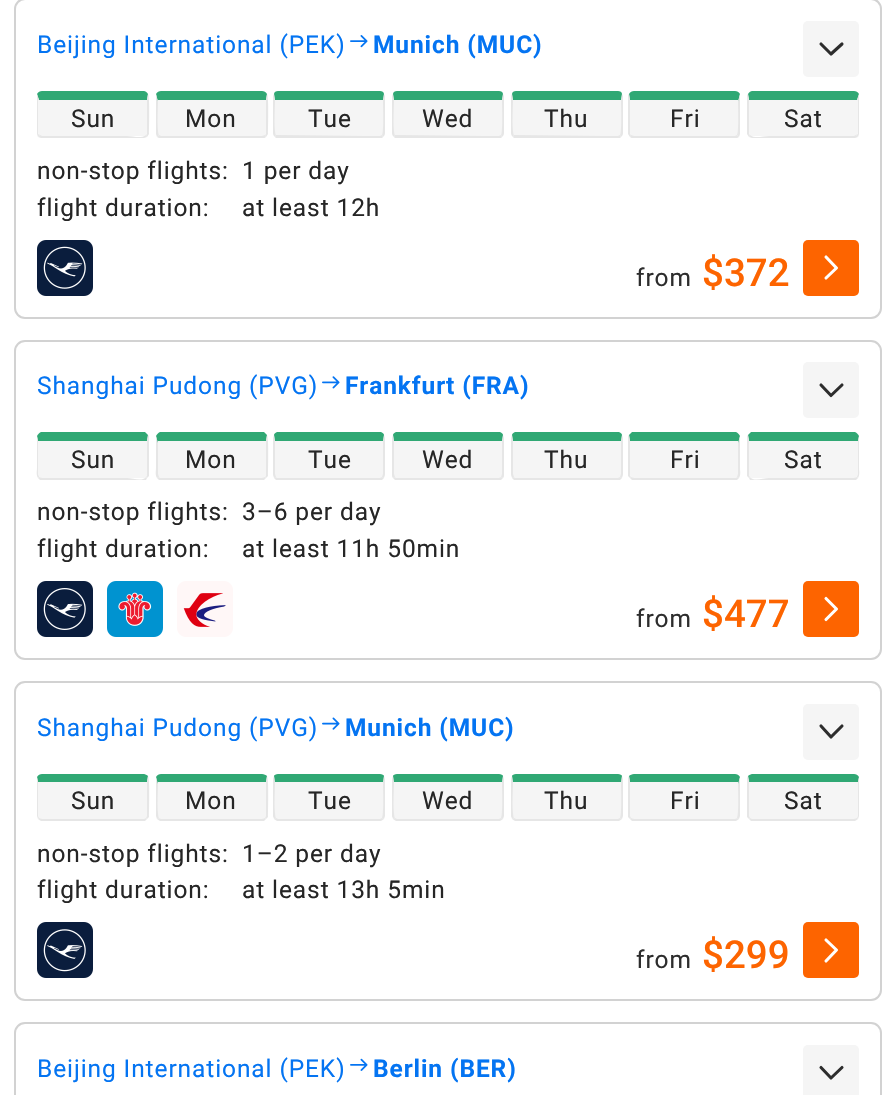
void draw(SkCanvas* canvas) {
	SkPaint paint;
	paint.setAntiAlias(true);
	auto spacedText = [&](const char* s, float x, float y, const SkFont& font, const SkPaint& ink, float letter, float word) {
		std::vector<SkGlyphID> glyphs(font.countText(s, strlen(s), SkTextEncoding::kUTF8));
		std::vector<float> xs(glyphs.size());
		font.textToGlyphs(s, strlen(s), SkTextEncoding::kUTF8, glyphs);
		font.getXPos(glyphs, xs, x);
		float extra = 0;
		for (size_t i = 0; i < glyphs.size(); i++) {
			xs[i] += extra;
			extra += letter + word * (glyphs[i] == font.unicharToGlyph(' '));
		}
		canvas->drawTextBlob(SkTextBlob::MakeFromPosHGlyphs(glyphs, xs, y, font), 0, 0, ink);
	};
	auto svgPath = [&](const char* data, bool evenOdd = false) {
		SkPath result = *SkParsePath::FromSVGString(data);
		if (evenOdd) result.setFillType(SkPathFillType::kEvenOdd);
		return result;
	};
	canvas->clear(0xffffffff);
	paint.setStroke(true);
	paint.setStrokeWidth(2);
	paint.setColor(0xffd2d2d2);
	canvas->drawRoundRect(SkRect::MakeXYWH(15, -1, 866, 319), 10, 10, paint);
	SkFont f1(fontMgr->matchFamilyStyle("Roboto", SkFontStyle::Normal()), 24.5);
	f1.setSubpixel(true);
	paint.setStroke(false);
	paint.setColor(0xff0474f2);
	spacedText("Beijing International (PEK)", 37, 53, f1, paint, 0.9, 0);
	canvas->drawImageRect(SkImages::DeferredFromEncodedData(SkData::MakeFromFileName("img1.png")), SkRect::MakeXYWH(350, 35, 18, 13), SkSamplingOptions());
	SkFont f2(fontMgr->matchFamilyStyle("Roboto", SkFontStyle::Bold()), 24.5);
	f2.setSubpixel(true);
	spacedText("Munich (MUC)", 373, 53, f2, paint, 0.9, 0);
	paint.setColor(0xfff5f5f5);
	canvas->drawRoundRect(SkRect::MakeXYWH(803, 21, 56, 56), 5, 5, paint);
	paint.setStroke(true);
	paint.setStrokeWidth(3.1);
	paint.setStrokeCap(SkPaint::kRound_Cap);
	paint.setStrokeJoin(SkPaint::kRound_Join);
	paint.setColor(0xff2d2d2d);
	canvas->drawPath(svgPath("M821 44L831 54L842 44"), paint);
	paint.setStroke(false);
	paint.setColor(0xfff5f5f5);
	canvas->drawPath(svgPath("M42 100H147V133C147 135 145 136 144 136H42C40 136 38 135 38 133V100Z"), paint);
	paint.setColor(0xff30a874);
	canvas->drawPath(svgPath("M42 91C40 91 38 92 37 94L39 100H147L148 94C147 92 145 91 144 91Z"), paint);
	paint.setColor(0xffe6e6e6);
	canvas->drawPath(svgPath("M149 134L147 137L146 135L147 134V100L148 94C150 96 149 129 149 134Z"), paint);
	canvas->drawPath(svgPath("M147 137L144 138H41L38 137L40 135L42 136H127C133 136 141 139 146 135Z"), paint);
	canvas->drawPath(svgPath("M37 94V134L38 137L40 135L38 134V100H39Z"), paint);
	paint.setColor(0xff262626);
	spacedText("Sun", 71, 127, f1, paint, 0.9, 0);
	paint.setColor(0xfff5f5f5);
	canvas->drawPath(svgPath("M161 100H266V133C266 135 264 136 262 136H161C159 136 158 135 158 133V100Z"), paint);
	paint.setColor(0xff30a874);
	canvas->drawPath(svgPath("M161 91C159 91 157 92 156 94L158 102V100H266L267 94C266 92 264 91 262 91Z"), paint);
	paint.setColor(0xffe6e6e6);
	canvas->drawPath(svgPath("M268 134L266 137L265 135L266 134V100L267 94C269 96 268 129 268 134Z"), paint);
	canvas->drawPath(svgPath("M266 137C265 138 264 138 262 138H161C160 138 158 138 157 137L159 135L161 136H262L265 135Z"), paint);
	canvas->drawPath(svgPath("M156 94V134L157 137L159 135C157 133 158 107 158 102Z"), paint);
	paint.setColor(0xff262626);
	spacedText("Mon", 185, 127, f1, paint, 0.9, 0);
	paint.setColor(0xfff5f5f5);
	canvas->drawPath(svgPath("M278 100H383V133C383 135 382 136 380 136H278C276 136 275 135 275 133V100Z"), paint);
	paint.setColor(0xff30a874);
	canvas->drawPath(svgPath("M278 91C276 91 274 92 274 94L275 101V100H383V101L384 94C384 92 382 91 380 91Z"), paint);
	paint.setColor(0xffe6e6e6);
	canvas->drawPath(svgPath("M385 133V96L384 94L383 101C383 106 384 134 382 135L383 137C384 136 385 135 385 133Z"), paint);
	canvas->drawPath(svgPath("M383 137C383 138 381 138 380 138H278C277 138 275 138 275 137L276 135L363 136H380L382 135Z"), paint);
	canvas->drawPath(svgPath("M273 96V133C273 135 274 136 275 137L276 135C274 134 275 106 275 101L274 94Z"), paint);
	paint.setColor(0xff262626);
	spacedText("Tue", 308, 127, f1, paint, 0.9, 0);
	paint.setColor(0xfff5f5f5);
	canvas->drawPath(svgPath("M397 100H502V133C502 135 501 136 499 136H397C395 136 394 135 394 133V100Z"), paint);
	paint.setColor(0xff30a874);
	canvas->drawPath(svgPath("M397 91C395 91 393 92 393 94L394 101V100H502V101L503 94C503 92 501 91 499 91Z"), paint);
	paint.setColor(0xffe6e6e6);
	canvas->drawPath(svgPath("M504 133V96L503 94L502 101C502 106 503 134 501 135L502 137C503 136 504 135 504 133Z"), paint);
	canvas->drawPath(svgPath("M502 137C502 138 500 138 499 138H397C396 138 394 138 394 137L395 135L482 136H499L501 135Z"), paint);
	canvas->drawPath(svgPath("M392 96V133C392 135 393 136 394 137L395 135C393 134 394 106 394 101L393 94Z"), paint);
	paint.setColor(0xff262626);
	spacedText("Wed", 422, 127, f1, paint, 0.9, 0);
	paint.setColor(0xfff5f5f5);
	canvas->drawPath(svgPath("M516 100H621V133C621 135 620 136 618 136H516C514 136 513 135 513 133V100Z"), paint);
	paint.setColor(0xff30a874);
	canvas->drawPath(svgPath("M516 91C514 91 512 92 512 94L513 101V100H621V101L622 94C622 92 620 91 618 91Z"), paint);
	paint.setColor(0xffe6e6e6);
	canvas->drawPath(svgPath("M623 133V96L622 94L621 101C621 106 622 134 620 135L621 137C622 136 623 135 623 133Z"), paint);
	canvas->drawPath(svgPath("M621 137C621 138 619 138 618 138H516C515 138 513 138 513 137L514 135L601 136H618L620 135Z"), paint);
	canvas->drawPath(svgPath("M511 96V133C511 135 512 136 513 137L514 135C512 134 513 106 513 101L512 94Z"), paint);
	paint.setColor(0xff262626);
	spacedText("Thu", 544, 127, f1, paint, 0.9, 0);
	paint.setColor(0xfff5f5f5);
	canvas->drawPath(svgPath("M634 100H738V133C738 135 737 136 735 136H634C632 136 630 135 630 133V100Z"), paint);
	paint.setColor(0xff30a874);
	canvas->drawPath(svgPath("M634 91C632 91 630 92 629 94L630 100H738V102L740 94C739 92 737 91 735 91Z"), paint);
	paint.setColor(0xffe6e6e6);
	canvas->drawPath(svgPath("M740 94V134L739 137L737 135C739 133 738 107 738 102Z"), paint);
	canvas->drawPath(svgPath("M739 137C738 138 736 138 735 138H634C632 138 631 138 630 137L631 135L634 136H735L737 135Z"), paint);
	canvas->drawPath(svgPath("M628 95L629 94L630 100V134L631 135L630 137L628 134Z"), paint);
	paint.setColor(0xff262626);
	spacedText("Fri", 670, 127, f1, paint, 0.9, 0);
	paint.setColor(0xfff5f5f5);
	canvas->drawPath(svgPath("M752 100H858V133C858 135 856 136 854 136H752C751 136 749 135 749 133V100Z"), paint);
	paint.setColor(0xff30a874);
	canvas->drawPath(svgPath("M752 91C751 91 749 92 748 94L749 100H857L859 94C858 92 856 91 854 91Z"), paint);
	paint.setColor(0xffe6e6e6);
	canvas->drawPath(svgPath("M859 94V134L858 137L856 135L858 134V100H857Z"), paint);
	canvas->drawPath(svgPath("M858 137L855 138H752L749 137L750 135C755 139 763 136 769 136H854L856 135Z"), paint);
	canvas->drawPath(svgPath("M747 95L748 94L749 100V134L750 135L749 137L747 134Z"), paint);
	paint.setColor(0xff262626);
	spacedText("Sat", 784, 127, f1, paint, 0.9, 0);
	spacedText("non-stop flights:", 37, 179, f1, paint, 0.9, 0);
	spacedText("1 per day", 242, 179, f1, paint, 0.9, 0);
	spacedText("flight duration:", 37, 216, f1, paint, 0.9, 0);
	spacedText("at least 12h", 242, 216, f1, paint, 0.9, 0);
	canvas->drawImageRect(SkImages::DeferredFromEncodedData(SkData::MakeFromFileName("img2.png")), SkRect::MakeXYWH(37, 240, 56, 56), SkSamplingOptions());
	paint.setColor(0xff2d2d2d);
	spacedText("from", 636, 286, f1, paint, 0.9, 0);
	SkFont f3(fontMgr->matchFamilyStyle("Roboto", SkFontStyle(500, SkFontStyle::kNormal_Width, SkFontStyle::kUpright_Slant)), 38.5);
	f3.setSubpixel(true);
	paint.setColor(0xfffd6400);
	canvas->drawString("$372", 702, 286, f3, paint);
	canvas->drawRoundRect(SkRect::MakeXYWH(803, 240, 56, 56), 5, 5, paint);
	paint.setStroke(true);
	paint.setColor(0xffffffff);
	canvas->drawPath(svgPath("M826 278L836.5 268L826 257"), paint);
	paint.setStrokeWidth(2);
	paint.setStrokeCap(SkPaint::kButt_Cap);
	paint.setStrokeJoin(SkPaint::kMiter_Join);
	paint.setColor(0xffd2d2d2);
	canvas->drawRoundRect(SkRect::MakeXYWH(15, 341, 866, 318), 10, 10, paint);
	paint.setStroke(false);
	paint.setColor(0xff0474f2);
	spacedText("Shanghai Pudong (PVG)", 37, 394, f1, paint, 0.9, 0);
	canvas->drawImageRect(SkImages::DeferredFromEncodedData(SkData::MakeFromFileName("img3.png")), SkRect::MakeXYWH(322, 376, 18, 13), SkSamplingOptions());
	spacedText("Frankfurt (FRA)", 345, 394, f2, paint, 0.9, 0);
	paint.setColor(0xfff5f5f5);
	canvas->drawRoundRect(SkRect::MakeXYWH(803, 362, 56, 56), 5, 5, paint);
	paint.setStroke(true);
	paint.setStrokeWidth(3.1);
	paint.setStrokeCap(SkPaint::kRound_Cap);
	paint.setStrokeJoin(SkPaint::kRound_Join);
	paint.setColor(0xff2d2d2d);
	canvas->drawPath(svgPath("M821 385L831 395.5L842 385"), paint);
	paint.setStroke(false);
	paint.setColor(0xfff5f5f5);
	canvas->drawPath(svgPath("M42 441H147V474C147 476 145 478 144 478H42C40 478 38 476 38 474V441Z"), paint);
	paint.setColor(0xff30a874);
	canvas->drawPath(svgPath("M37 436C38 434 39 433 41 432H145C146 433 147 434 148 435L147 441H38Z"), paint);
	paint.setColor(0xffe6e6e6);
	canvas->drawPath(svgPath("M149 476L147 478L146 477C147 476 147 475 147 474V441L148 435L149 436Z"), paint);
	canvas->drawPath(svgPath("M40 480L38 478L39 477L42 478H127C133 478 142 482 146 477L147 478L146 480Z"), paint);
	canvas->drawPath(svgPath("M38 478C36 475 37 471 37 468V436L38 441V474C38 475 39 476 39 477Z"), paint);
	paint.setColor(0xff262626);
	spacedText("Sun", 71, 468, f1, paint, 0.9, 0);
	paint.setColor(0xfff5f5f5);
	canvas->drawPath(svgPath("M161 441H266V474C266 476 264 478 262 478H161C159 478 158 476 158 474V441Z"), paint);
	paint.setColor(0xff30a874);
	canvas->drawPath(svgPath("M156 436C157 434 158 433 160 432H264C265 433 266 434 267 435L266 441H158V444Z"), paint);
	paint.setColor(0xffe6e6e6);
	canvas->drawPath(svgPath("M268 476L266 478L265 477C266 476 266 475 266 474V441L267 435C269 438 268 470 268 476Z"), paint);
	canvas->drawPath(svgPath("M159 480L157 478L159 477L160 478H262L265 477L266 478L264 480Z"), paint);
	canvas->drawPath(svgPath("M157 478C155 475 156 471 156 468V436L158 444V474L159 477Z"), paint);
	paint.setColor(0xff262626);
	spacedText("Mon", 185, 468, f1, paint, 0.9, 0);
	paint.setColor(0xfff5f5f5);
	canvas->drawPath(svgPath("M278 441H383V474C383 476 382 478 380 478H278C276 478 275 476 275 474V441Z"), paint);
	paint.setColor(0xff30a874);
	canvas->drawPath(svgPath("M274 435C274 434 275 433 277 432H381C383 433 384 434 384 435L383 442V441H275V442Z"), paint);
	paint.setColor(0xffe6e6e6);
	canvas->drawPath(svgPath("M385 474V438L384 435L383 442V474L382 477L384 478C384 477 385 476 385 474Z"), paint);
	canvas->drawPath(svgPath("M276 480L274 478L276 477L277 478H363H380L382 477L384 478L382 480Z"), paint);
	canvas->drawPath(svgPath("M273 438V474C273 476 274 477 274 478L276 477L275 474V442L274 435Z"), paint);
	paint.setColor(0xff262626);
	spacedText("Tue", 308, 468, f1, paint, 0.9, 0);
	paint.setColor(0xfff5f5f5);
	canvas->drawPath(svgPath("M397 441H502V474C502 476 501 478 499 478H397C395 478 394 476 394 474V441Z"), paint);
	paint.setColor(0xff30a874);
	canvas->drawPath(svgPath("M393 435C393 434 394 433 396 432H500C502 433 503 434 503 435L502 442V441H394V442Z"), paint);
	paint.setColor(0xffe6e6e6);
	canvas->drawPath(svgPath("M504 474V438L503 435L502 442V474L501 477L503 478C504 477 504 476 504 474Z"), paint);
	canvas->drawPath(svgPath("M395 480L393 478L395 477L396 478H482H499L501 477L503 478L501 480Z"), paint);
	canvas->drawPath(svgPath("M392 438V474C392 476 392 477 393 478L395 477L394 474V442L393 435Z"), paint);
	paint.setColor(0xff262626);
	spacedText("Wed", 422, 468, f1, paint, 0.9, 0);
	paint.setColor(0xfff5f5f5);
	canvas->drawPath(svgPath("M516 441H621V474C621 476 620 478 618 478H516C514 478 513 476 513 474V441Z"), paint);
	paint.setColor(0xff30a874);
	canvas->drawPath(svgPath("M512 435C512 434 513 433 515 432H619C621 433 622 434 622 435L621 442V441H513V442Z"), paint);
	paint.setColor(0xffe6e6e6);
	canvas->drawPath(svgPath("M623 474V438L622 435L621 442V474L620 477L622 478C622 477 623 476 623 474Z"), paint);
	canvas->drawPath(svgPath("M514 480L512 478L514 477L515 478H601H618L620 477L622 478L620 480Z"), paint);
	canvas->drawPath(svgPath("M511 438V474C511 476 512 477 512 478L514 477L513 474V442L512 435Z"), paint);
	paint.setColor(0xff262626);
	spacedText("Thu", 544, 468, f1, paint, 0.9, 0);
	paint.setColor(0xfff5f5f5);
	canvas->drawPath(svgPath("M634 441H738V474C738 476 737 478 735 478H634C632 478 630 476 630 474V441Z"), paint);
	paint.setColor(0xff30a874);
	canvas->drawPath(svgPath("M629 435C630 434 631 433 632 432H736C738 433 739 434 740 436L738 444V441H630Z"), paint);
	paint.setColor(0xffe6e6e6);
	canvas->drawPath(svgPath("M740 436V468C740 471 741 475 739 478L737 477L738 474V444Z"), paint);
	canvas->drawPath(svgPath("M632 480L630 478L631 477L634 478H736L737 477L739 478L737 480Z"), paint);
	canvas->drawPath(svgPath("M628 436L629 435L630 441V474C630 475 630 476 631 477L630 478L628 476Z"), paint);
	paint.setColor(0xff262626);
	spacedText("Fri", 670, 468, f1, paint, 0.9, 0);
	paint.setColor(0xfff5f5f5);
	canvas->drawPath(svgPath("M752 441H858V474C858 476 856 478 854 478H752C751 478 749 476 749 474V441Z"), paint);
	paint.setColor(0xff30a874);
	canvas->drawPath(svgPath("M748 435C749 434 750 433 751 432H855C857 433 858 434 859 436L858 441H749Z"), paint);
	paint.setColor(0xffe6e6e6);
	canvas->drawPath(svgPath("M859 436V468C859 471 860 475 858 478L857 477C857 476 858 475 858 474V441Z"), paint);
	canvas->drawPath(svgPath("M750 480L749 478L750 477C754 482 763 478 769 478H854L857 477L858 478L856 480Z"), paint);
	canvas->drawPath(svgPath("M747 436L748 435L749 441V474C749 475 749 476 750 477L749 478L747 476Z"), paint);
	paint.setColor(0xff262626);
	spacedText("Sat", 784, 468, f1, paint, 0.9, 0);
	spacedText("non-stop flights:", 37, 520, f1, paint, 0.9, 0);
	spacedText("3–6 per day", 242, 520, f1, paint, 0.9, 0);
	spacedText("flight duration:", 37, 557, f1, paint, 0.9, 0);
	spacedText("at least 11h 50min", 242, 557, f1, paint, 0.9, 0);
	canvas->drawImageRect(SkImages::DeferredFromEncodedData(SkData::MakeFromFileName("img4.png")), SkRect::MakeXYWH(37, 581, 56, 56), SkSamplingOptions());
	canvas->drawImageRect(SkImages::DeferredFromEncodedData(SkData::MakeFromFileName("img5.png")), SkRect::MakeXYWH(107, 581, 56, 56), SkSamplingOptions());
	canvas->drawImageRect(SkImages::DeferredFromEncodedData(SkData::MakeFromFileName("img6.png")), SkRect::MakeXYWH(177, 581, 56, 56), SkSamplingOptions());
	paint.setColor(0xff2d2d2d);
	spacedText("from", 636, 627, f1, paint, 0.9, 0);
	paint.setColor(0xfffd6400);
	canvas->drawString("$477", 702, 627, f3, paint);
	canvas->drawRoundRect(SkRect::MakeXYWH(803, 581, 56, 56), 5, 5, paint);
	paint.setStroke(true);
	paint.setColor(0xffffffff);
	canvas->drawPath(svgPath("M826 619.5L836.5 609L826 598.5"), paint);
	paint.setStrokeWidth(2);
	paint.setStrokeCap(SkPaint::kButt_Cap);
	paint.setStrokeJoin(SkPaint::kMiter_Join);
	paint.setColor(0xffd2d2d2);
	canvas->drawRoundRect(SkRect::MakeXYWH(15, 682, 866, 318), 10, 10, paint);
	paint.setStroke(false);
	paint.setColor(0xff0474f2);
	spacedText("Shanghai Pudong (PVG)", 37, 736, f1, paint, 0.9, 0);
	canvas->drawImageRect(SkImages::DeferredFromEncodedData(SkData::MakeFromFileName("img7.png")), SkRect::MakeXYWH(322, 717, 18, 13), SkSamplingOptions());
	spacedText("Munich (MUC)", 345, 736, f2, paint, 0.9, 0);
	paint.setColor(0xfff5f5f5);
	canvas->drawRoundRect(SkRect::MakeXYWH(803, 704, 56, 56), 5, 5, paint);
	paint.setStroke(true);
	paint.setStrokeWidth(3.1);
	paint.setStrokeCap(SkPaint::kRound_Cap);
	paint.setStrokeJoin(SkPaint::kRound_Join);
	paint.setColor(0xff2d2d2d);
	canvas->drawPath(svgPath("M821 726L831 737L842 726"), paint);
	paint.setStroke(false);
	paint.setColor(0xfff5f5f5);
	canvas->drawPath(svgPath("M42 782H147V816C147 817 145 819 144 819H42C40 819 38 817 38 816V782Z"), paint);
	paint.setColor(0xff30a874);
	canvas->drawPath(svgPath("M42 774C40 774 38 775 37 777L38 782H147L148 776C147 775 145 774 144 774Z"), paint);
	paint.setColor(0xffe6e6e6);
	canvas->drawPath(svgPath("M149 817L147 819L146 818L147 816V782L148 776C150 778 149 812 149 817Z"), paint);
	canvas->drawPath(svgPath("M41 821L38 819L39 818L42 819H144L146 818L147 819L145 821Z"), paint);
	canvas->drawPath(svgPath("M37 777V816L38 819L39 818L38 816V782Z"), paint);
	paint.setColor(0xff262626);
	spacedText("Sun", 71, 809, f1, paint, 0.9, 0);
	paint.setColor(0xfff5f5f5);
	canvas->drawPath(svgPath("M161 782H266V816C266 817 264 819 262 819H161C159 819 158 817 158 816V782Z"), paint);
	paint.setColor(0xff30a874);
	canvas->drawPath(svgPath("M161 774C159 774 157 775 156 777L158 785V782H266L267 776C266 775 264 774 262 774Z"), paint);
	paint.setColor(0xffe6e6e6);
	canvas->drawPath(svgPath("M268 817L266 819L265 818L266 816V782L267 776C269 779 268 812 268 817Z"), paint);
	canvas->drawPath(svgPath("M160 821L157 819L159 818C159 818 160 819 161 819H262C263 819 264 818 265 818L266 819L264 821Z"), paint);
	canvas->drawPath(svgPath("M156 777V816L157 819L159 818C157 815 158 790 158 785Z"), paint);
	paint.setColor(0xff262626);
	spacedText("Mon", 185, 809, f1, paint, 0.9, 0);
	paint.setColor(0xfff5f5f5);
	canvas->drawPath(svgPath("M278 782H383V816C383 817 382 819 380 819H278C276 819 275 817 275 816V782Z"), paint);
	paint.setColor(0xff30a874);
	canvas->drawPath(svgPath("M278 774C276 774 274 775 274 776L275 784V782H383V784L384 776C384 775 382 774 380 774Z"), paint);
	paint.setColor(0xffe6e6e6);
	canvas->drawPath(svgPath("M385 816V779L384 776L383 784C383 789 384 815 382 818L384 819Z"), paint);
	canvas->drawPath(svgPath("M277 821L274 819L276 818L278 819H380L382 818L384 819L381 821Z"), paint);
	canvas->drawPath(svgPath("M273 779V816C273 817 274 818 274 819L276 818C274 815 275 789 275 784L274 776Z"), paint);
	paint.setColor(0xff262626);
	spacedText("Tue", 308, 809, f1, paint, 0.9, 0);
	paint.setColor(0xfff5f5f5);
	canvas->drawPath(svgPath("M397 782H502V816C502 817 501 819 499 819H397C395 819 394 817 394 816V782Z"), paint);
	paint.setColor(0xff30a874);
	canvas->drawPath(svgPath("M397 774C395 774 393 775 393 776L394 784V782H502V784L503 776C503 775 501 774 499 774Z"), paint);
	paint.setColor(0xffe6e6e6);
	canvas->drawPath(svgPath("M504 816V779L503 776L502 784C502 789 503 815 501 818L503 819Z"), paint);
	canvas->drawPath(svgPath("M396 821L393 819L395 818L397 819H499L501 818L503 819L500 821Z"), paint);
	canvas->drawPath(svgPath("M392 779V816C392 817 393 818 393 819L395 818C393 815 394 789 394 784L393 776Z"), paint);
	paint.setColor(0xff262626);
	spacedText("Wed", 422, 809, f1, paint, 0.9, 0);
	paint.setColor(0xfff5f5f5);
	canvas->drawPath(svgPath("M516 782H621V816C621 817 620 819 618 819H516C514 819 513 817 513 816V782Z"), paint);
	paint.setColor(0xff30a874);
	canvas->drawPath(svgPath("M516 774C514 774 512 775 512 776L513 784V782H621V784L622 776C622 775 620 774 618 774Z"), paint);
	paint.setColor(0xffe6e6e6);
	canvas->drawPath(svgPath("M623 816V779L622 776L621 784C621 789 622 815 620 818L622 819Z"), paint);
	canvas->drawPath(svgPath("M515 821L512 819L514 818L516 819H618L620 818L622 819L619 821Z"), paint);
	canvas->drawPath(svgPath("M511 779V816C511 817 512 818 512 819L514 818C512 815 513 789 513 784L512 776Z"), paint);
	paint.setColor(0xff262626);
	spacedText("Thu", 544, 809, f1, paint, 0.9, 0);
	paint.setColor(0xfff5f5f5);
	canvas->drawPath(svgPath("M634 782H738V816C738 817 737 819 735 819H634C632 819 630 817 630 816V782Z"), paint);
	paint.setColor(0xff30a874);
	canvas->drawPath(svgPath("M634 774C632 774 630 775 629 776L630 782H738V785L740 777C739 775 737 774 735 774Z"), paint);
	paint.setColor(0xffe6e6e6);
	canvas->drawPath(svgPath("M740 777V816L739 819L737 818C739 815 738 790 738 785Z"), paint);
	canvas->drawPath(svgPath("M632 821L630 819L631 818C632 818 633 819 634 819H735C736 819 737 818 737 818L739 819L736 821Z"), paint);
	canvas->drawPath(svgPath("M628 778L629 776L630 782V816L631 818L630 819L628 817Z"), paint);
	paint.setColor(0xff262626);
	spacedText("Fri", 670, 809, f1, paint, 0.9, 0);
	paint.setColor(0xfff5f5f5);
	canvas->drawPath(svgPath("M752 782H858V816C858 817 856 819 854 819H752C751 819 749 817 749 816V782Z"), paint);
	paint.setColor(0xff30a874);
	canvas->drawPath(svgPath("M752 774C751 774 749 775 748 776L749 782H858L859 777C858 775 856 774 854 774Z"), paint);
	paint.setColor(0xffe6e6e6);
	canvas->drawPath(svgPath("M859 777V816L858 819L857 818L858 816V782Z"), paint);
	canvas->drawPath(svgPath("M751 821L749 819L750 818L752 819H854L857 818L858 819L855 821Z"), paint);
	canvas->drawPath(svgPath("M747 778L748 776L749 782V816L750 818L749 819L747 817Z"), paint);
	paint.setColor(0xff262626);
	spacedText("Sat", 784, 809, f1, paint, 0.9, 0);
	spacedText("non-stop flights:", 37, 862, f1, paint, 0.9, 0);
	spacedText("1–2 per day", 242, 862, f1, paint, 0.9, 0);
	spacedText("flight duration:", 37, 898, f1, paint, 0.9, 0);
	spacedText("at least 13h 5min", 242, 898, f1, paint, 0.9, 0);
	canvas->drawImageRect(SkImages::DeferredFromEncodedData(SkData::MakeFromFileName("img8.png")), SkRect::MakeXYWH(37, 922, 56, 56), SkSamplingOptions());
	paint.setColor(0xff2d2d2d);
	spacedText("from", 636, 968, f1, paint, 0.9, 0);
	paint.setColor(0xfffd6400);
	canvas->drawString("$299", 702, 968, f3, paint);
	canvas->drawRoundRect(SkRect::MakeXYWH(803, 922, 56, 56), 5, 5, paint);
	paint.setStroke(true);
	paint.setColor(0xffffffff);
	canvas->drawPath(svgPath("M826 961L836.5 950L826 940"), paint);
	paint.setStrokeWidth(2);
	paint.setStrokeCap(SkPaint::kButt_Cap);
	paint.setStrokeJoin(SkPaint::kMiter_Join);
	paint.setColor(0xffd2d2d2);
	canvas->drawRoundRect(SkRect::MakeXYWH(15, 1023, 866, 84), 10, 10, paint);
	paint.setStroke(false);
	paint.setColor(0xff0474f2);
	spacedText("Beijing International (PEK)", 37, 1077, f1, paint, 0.9, 0);
	canvas->drawImageRect(SkImages::DeferredFromEncodedData(SkData::MakeFromFileName("img9.png")), SkRect::MakeXYWH(350, 1058, 18, 13), SkSamplingOptions());
	spacedText("Berlin (BER)", 373, 1077, f2, paint, 0.9, 0);
	paint.setColor(0xfff5f5f5);
	canvas->drawRoundRect(SkRect::MakeXYWH(803, 1045, 56, 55), 5, 5, paint);
	paint.setStroke(true);
	paint.setStrokeWidth(3.1);
	paint.setStrokeCap(SkPaint::kRound_Cap);
	paint.setStrokeJoin(SkPaint::kRound_Join);
	paint.setColor(0xff2d2d2d);
	canvas->drawPath(svgPath("M821 1067.5L831 1078L842 1067.5"), paint);
}
